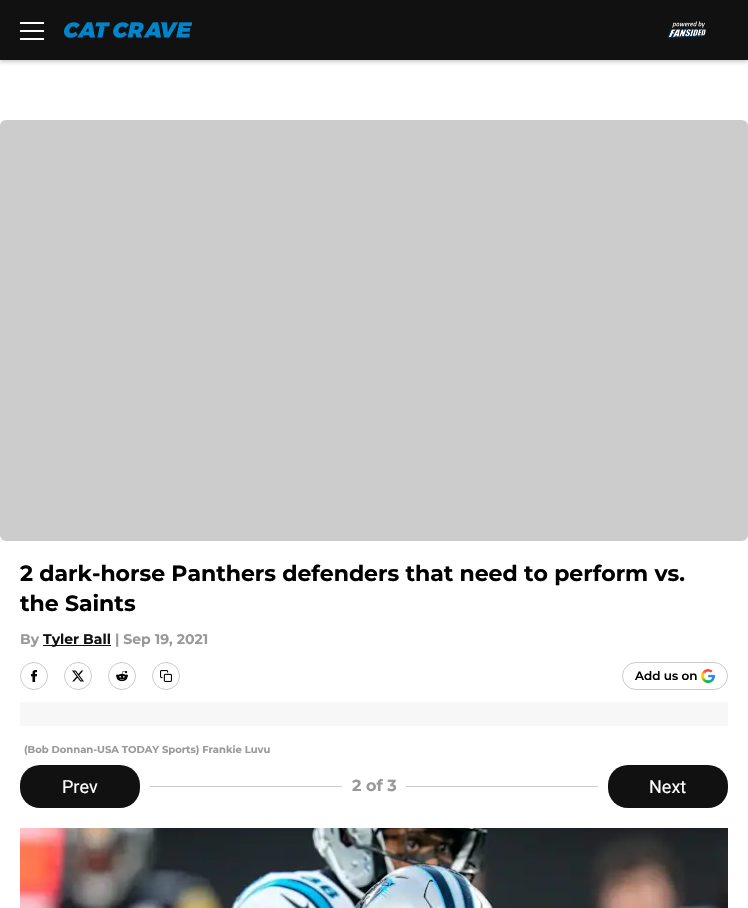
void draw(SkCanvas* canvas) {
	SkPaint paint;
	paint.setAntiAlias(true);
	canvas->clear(0xffffffff);
	paint.setColor(0x33000000);
	paint.setMaskFilter(SkMaskFilter::MakeBlur(kNormal_SkBlurStyle, 2));
	canvas->drawRect(SkRect::MakeXYWH(0, 2, 748, 60), paint);
	paint.setMaskFilter(nullptr);
	paint.setColor(0xff111111);
	canvas->drawRect(SkRect::MakeXYWH(0, 0, 748, 60), paint);
	paint.setColor(0xffffffff);
	canvas->drawRect(SkRect::MakeXYWH(20, 22, 24, 2), paint);
	canvas->drawRect(SkRect::MakeXYWH(20, 30, 24, 2), paint);
	canvas->drawRect(SkRect::MakeXYWH(20, 38, 24, 2), paint);
	canvas->drawImageRect(SkImages::DeferredFromEncodedData(SkData::MakeFromFileName("img1.png")), SkRect::MakeXYWH(64, 22, 128, 16), SkSamplingOptions());
	canvas->drawImageRect(SkImages::DeferredFromEncodedData(SkData::MakeFromFileName("img2.png")), SkRect::MakeXYWH(667, 21, 40, 18), SkSamplingOptions());
	paint.setColor(0xffcccccc);
	canvas->drawRoundRect(SkRect::MakeXYWH(0, 120, 748, 421), 6, 6, paint);
	SkFont f1(fontMgr->matchFamilyStyle("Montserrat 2", SkFontStyle(100, SkFontStyle::kNormal_Width, SkFontStyle::kUpright_Slant)), 22);
	f1.setSubpixel(true);
	paint.setColor(0xff000000);
	canvas->drawString("2 dark-horse Panthers defenders that need to perform vs.", 20, 581, f1, paint);
	canvas->drawString("the Saints", 20, 611, f1, paint);
	SkFont f2(fontMgr->matchFamilyStyle("Montserrat 2", SkFontStyle(100, SkFontStyle::kNormal_Width, SkFontStyle::kUpright_Slant)), 14);
	f2.setSubpixel(true);
	paint.setColor(0xff999999);
	canvas->drawString("By", 20, 644, f2, paint);
	paint.setColor(0xff111111);
	canvas->drawRect(SkRect::MakeXYWH(43, 645, 68, 1), paint);
	canvas->drawString("Tyler Ball", 43, 644, f2, paint);
	paint.setColor(0xff999999);
	canvas->drawString("| Sep 19, 2021", 115, 644, f2, paint);
	paint.setStroke(true);
	paint.setStrokeWidth(1);
	paint.setColor(0xffcccccc);
	canvas->drawCircle(34, 676, 13.5, paint);
	canvas->drawImageRect(SkImages::DeferredFromEncodedData(SkData::MakeFromFileName("img3.png")), SkRect::MakeXYWH(30, 670, 8, 12), SkSamplingOptions());
	canvas->drawCircle(78, 676, 13.5, paint);
	canvas->drawImageRect(SkImages::DeferredFromEncodedData(SkData::MakeFromFileName("img4.png")), SkRect::MakeXYWH(72, 670, 12, 12), SkSamplingOptions());
	canvas->drawCircle(122, 676, 13.5, paint);
	canvas->drawImageRect(SkImages::DeferredFromEncodedData(SkData::MakeFromFileName("img5.png")), SkRect::MakeXYWH(116, 670, 12, 12), SkSamplingOptions());
	canvas->drawCircle(166, 676, 13.5, paint);
	canvas->drawImageRect(SkImages::DeferredFromEncodedData(SkData::MakeFromFileName("img6.png")), SkRect::MakeXYWH(160, 670, 12, 12), SkSamplingOptions());
	canvas->drawRoundRect(SkRect::MakeXYWH(622.5, 662.5, 105, 27), 13.5, 13.5, paint);
	SkFont f3(fontMgr->matchFamilyStyle("Montserrat", SkFontStyle(100, SkFontStyle::kNormal_Width, SkFontStyle::kUpright_Slant)), 12);
	f3.setSubpixel(true);
	paint.setStroke(false);
	paint.setColor(0xff000000);
	canvas->drawString("Add us on", 635, 680, f3, paint);
	canvas->drawImageRect(SkImages::DeferredFromEncodedData(SkData::MakeFromFileName("img7.png")), SkRect::MakeXYWH(701, 669, 14, 14), SkSamplingOptions());
	paint.setColor(0xfff7f7f7);
	canvas->drawRect(SkRect::MakeXYWH(20, 702, 708, 24), paint);
	SkFont f4(fontMgr->matchFamilyStyle("Montserrat 2", SkFontStyle(100, SkFontStyle::kNormal_Width, SkFontStyle::kUpright_Slant)), 10);
	f4.setSubpixel(true);
	paint.setColor(0xff999999);
	canvas->drawString("(Bob Donnan-USA TODAY Sports) Frankie Luvu", 24, 753, f4, paint);
	paint.setColor(0xff111111);
	canvas->drawRoundRect(SkRect::MakeXYWH(20, 765, 120, 43), 20, 20, paint);
	SkFont f5(fontMgr->matchFamilyStyle("Roboto", SkFontStyle::Normal()), 18);
	f5.setSubpixel(true);
	paint.setColor(0xffffffff);
	canvas->drawString("Prev", 62, 793, f5, paint);
	paint.setColor(0xffcccccc);
	canvas->drawRect(SkRect::MakeXYWH(150, 786, 192, 1), paint);
	SkFont f6(fontMgr->matchFamilyStyle("Montserrat 2", SkFontStyle(100, SkFontStyle::kNormal_Width, SkFontStyle::kUpright_Slant)), 16);
	f6.setSubpixel(true);
	paint.setColor(0xff999999);
	canvas->drawString("2 of 3", 352, 791, f6, paint);
	paint.setColor(0xffcccccc);
	canvas->drawRect(SkRect::MakeXYWH(406, 786, 192, 1), paint);
	paint.setColor(0xff111111);
	canvas->drawRoundRect(SkRect::MakeXYWH(608, 765, 120, 43), 20, 20, paint);
	paint.setColor(0xffffffff);
	canvas->drawString("Next", 649, 793, f5, paint);
	canvas->drawImageRect(SkImages::DeferredFromEncodedData(SkData::MakeFromFileName("img8.png")), SkRect::MakeXYWH(20, 828, 708, 80), SkSamplingOptions());
}
